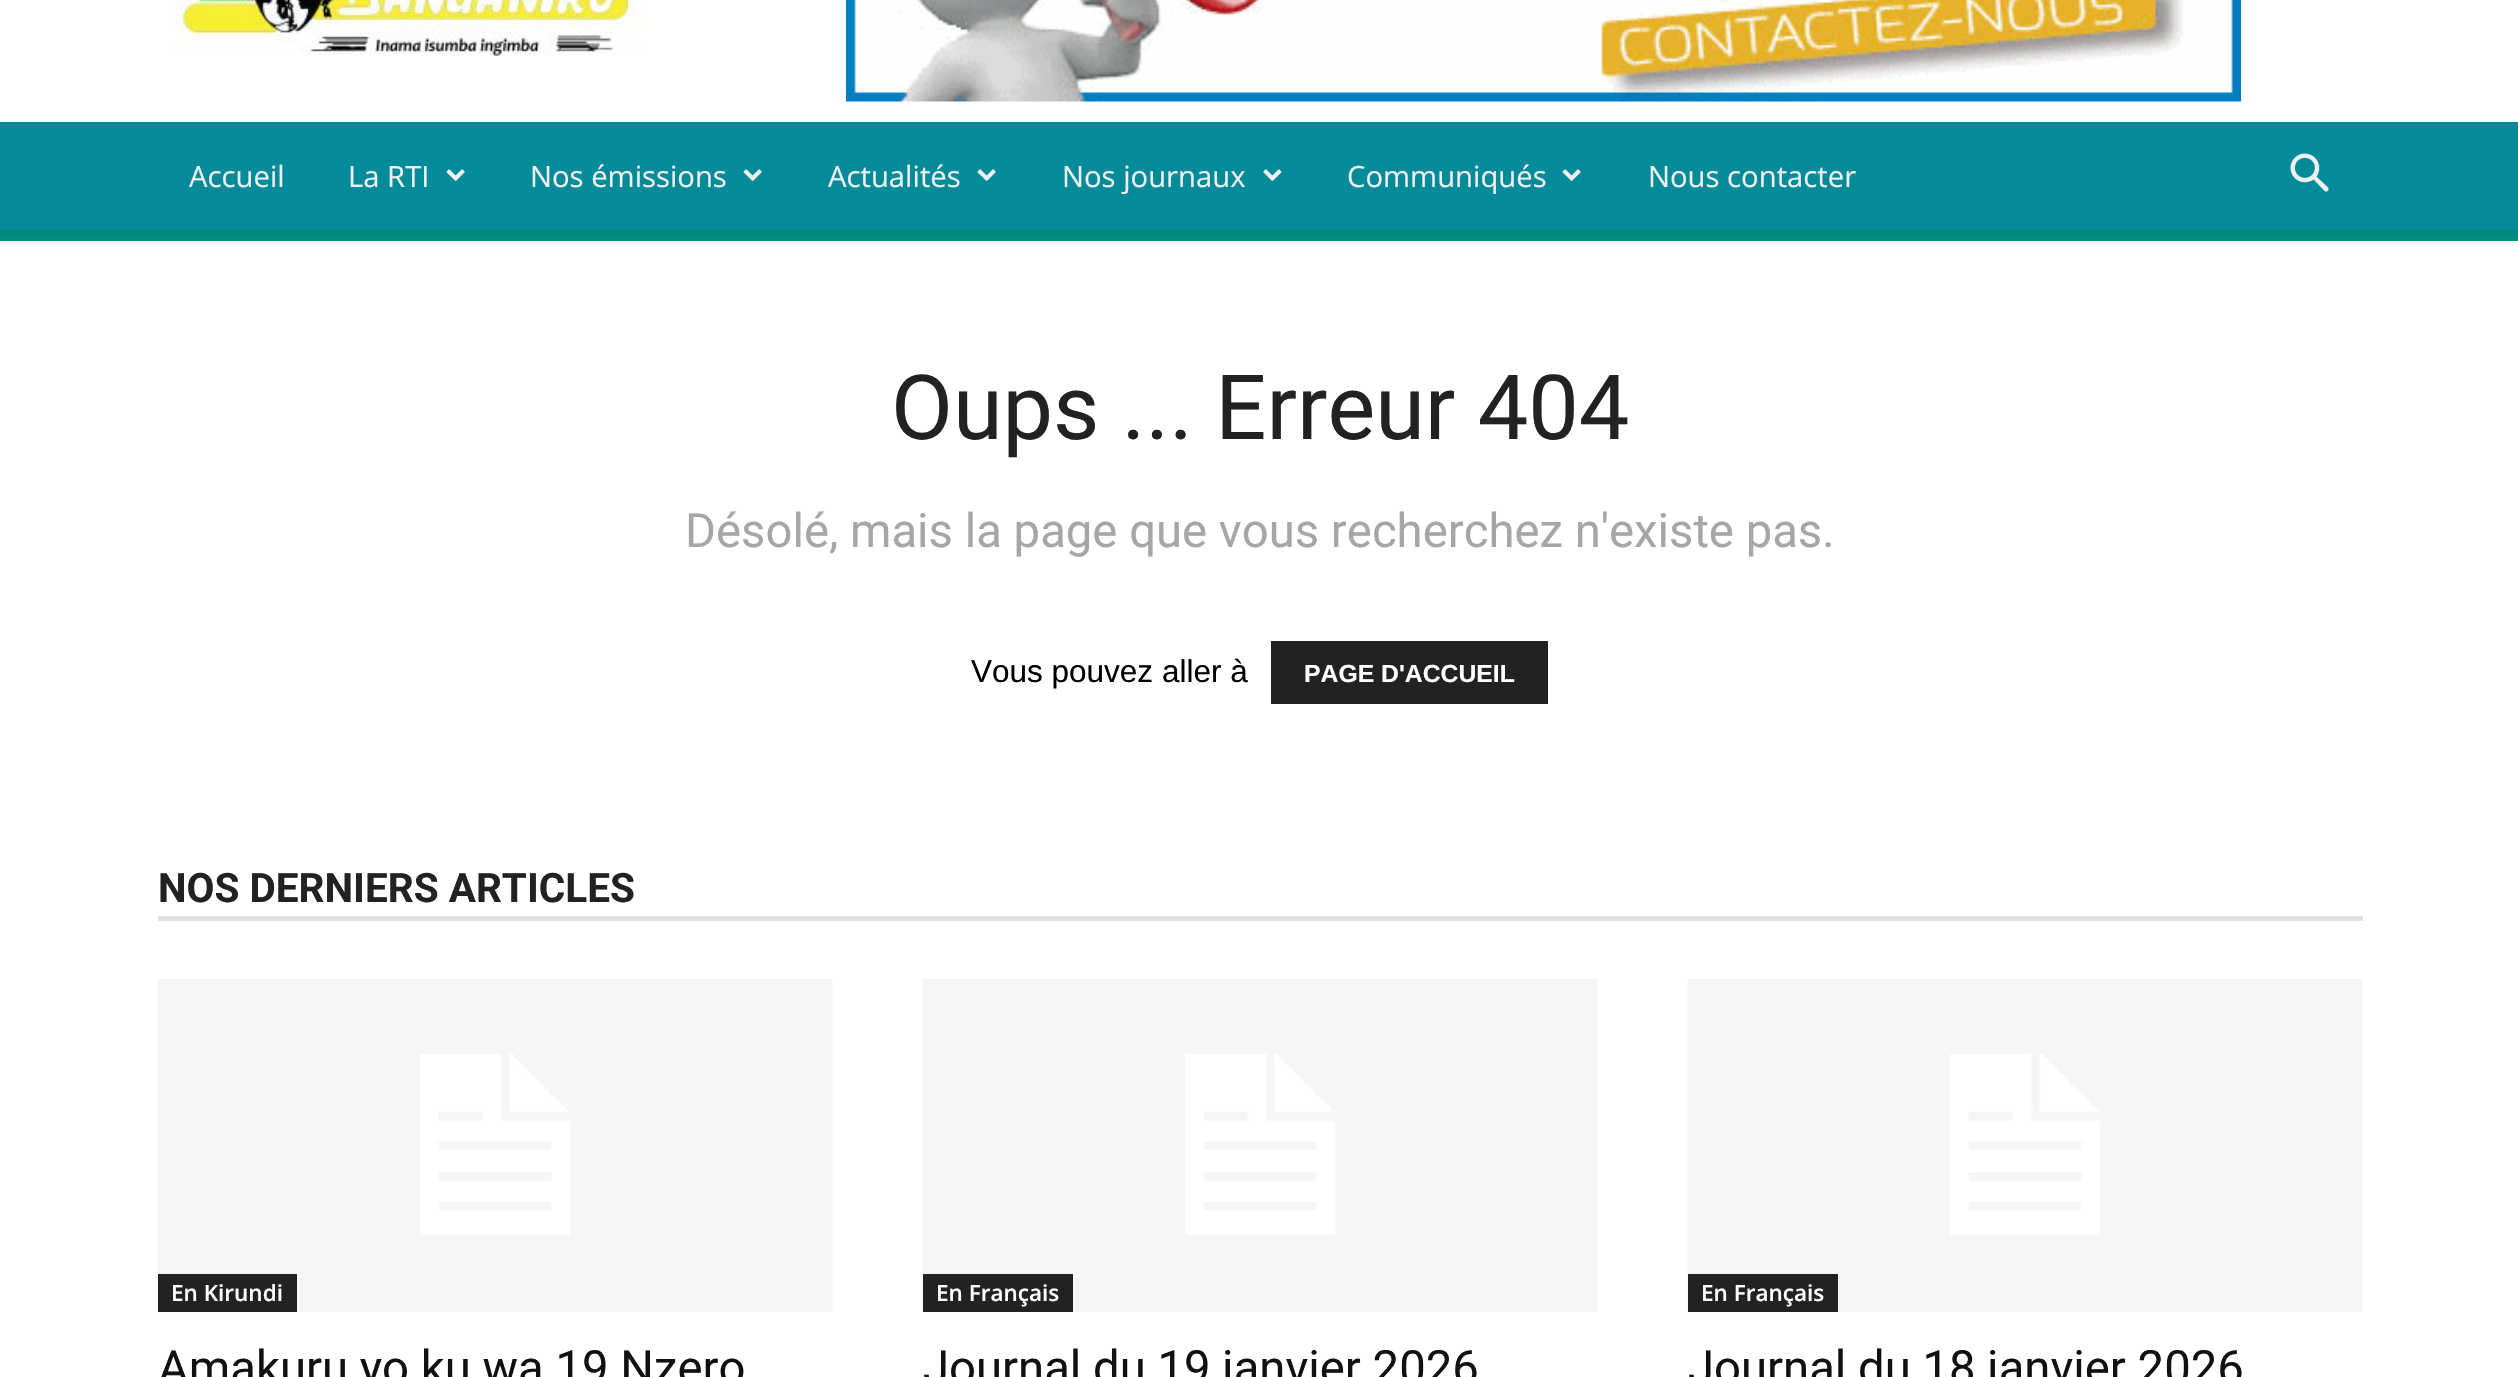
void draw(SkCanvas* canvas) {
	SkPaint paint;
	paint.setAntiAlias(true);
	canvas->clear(0xffffffff);
	canvas->drawImageRect(SkImages::DeferredFromEncodedData(SkData::MakeFromFileName("img1.png")), SkRect::MakeXYWH(175, 0, 469, 56), SkSamplingOptions());
	canvas->drawImageRect(SkImages::DeferredFromEncodedData(SkData::MakeFromFileName("img2.png")), SkRect::MakeXYWH(846, 0, 1395, 102), SkSamplingOptions());
	paint.setColor(0xff048b9a);
	canvas->drawRect(SkRect::MakeXYWH(0, 122, 2518, 108), paint);
	SkFont f1(fontMgr->matchFamilyStyle("Open Sans", SkFontStyle::Normal()), 29.25);
	f1.setSubpixel(true);
	paint.setColor(0xffefefef);
	canvas->drawString("Accueil", 189, 187, f1, paint);
	canvas->drawString("La RTI", 348, 187, f1, paint);
	canvas->drawImageRect(SkImages::DeferredFromEncodedData(SkData::MakeFromFileName("img3.png")), SkRect::MakeXYWH(446, 169, 19, 12), SkSamplingOptions());
	canvas->drawString("Nos émissions", 530, 187, f1, paint);
	canvas->drawImageRect(SkImages::DeferredFromEncodedData(SkData::MakeFromFileName("img3.png")), SkRect::MakeXYWH(743, 169, 19, 12), SkSamplingOptions());
	canvas->drawString("Actualités", 828, 187, f1, paint);
	canvas->drawImageRect(SkImages::DeferredFromEncodedData(SkData::MakeFromFileName("img3.png")), SkRect::MakeXYWH(977, 169, 19, 12), SkSamplingOptions());
	canvas->drawString("Nos journaux", 1062, 187, f1, paint);
	canvas->drawImageRect(SkImages::DeferredFromEncodedData(SkData::MakeFromFileName("img4.png")), SkRect::MakeXYWH(1263, 169, 19, 12), SkSamplingOptions());
	canvas->drawString("Communiqués", 1347, 187, f1, paint);
	canvas->drawImageRect(SkImages::DeferredFromEncodedData(SkData::MakeFromFileName("img3.png")), SkRect::MakeXYWH(1562, 169, 19, 12), SkSamplingOptions());
	canvas->drawString("Nous contacter", 1648, 187, f1, paint);
	canvas->drawImageRect(SkImages::DeferredFromEncodedData(SkData::MakeFromFileName("img5.png")), SkRect::MakeXYWH(2290, 153, 39, 39), SkSamplingOptions());
	paint.setColor(0xff009688);
	canvas->drawRect(SkRect::MakeXYWH(0, 230, 2518, 11), paint);
	canvas->drawImageRect(SkImages::DeferredFromEncodedData(SkData::MakeFromFileName("img6.png")), SkRect::MakeXYWH(0, 230, 2518, 11), SkSamplingOptions());
	SkFont f2(fontMgr->matchFamilyStyle("Roboto", SkFontStyle::Normal()), 90);
	f2.setSubpixel(true);
	paint.setColor(0xff222222);
	canvas->drawString("Oups ... Erreur 404", 891, 439, f2, paint);
	SkFont f3(fontMgr->matchFamilyStyle("Roboto", SkFontStyle::Normal()), 47.25);
	f3.setSubpixel(true);
	paint.setColor(0xffa6a6a6);
	canvas->drawString("Désolé, mais la page que vous recherchez n'existe pas.", 685, 547, f3, paint);
	SkFont f4(fontMgr->matchFamilyStyle("Liberation Sans", SkFontStyle::Normal()), 31.5);
	f4.setSubpixel(true);
	paint.setColor(0xff000000);
	canvas->drawString("Vous pouvez aller à", 971, 682, f4, paint);
	paint.setColor(0xff222222);
	canvas->drawRect(SkRect::MakeXYWH(1271, 641, 277, 63), paint);
	SkFont f5(fontMgr->matchFamilyStyle("Liberation Sans", SkFontStyle::Bold()), 24.75);
	f5.setSubpixel(true);
	paint.setColor(0xffffffff);
	canvas->drawString("PAGE D'ACCUEIL", 1304, 682, f5, paint);
	paint.setColor(0xffe2e0e1);
	canvas->drawRect(SkRect::MakeXYWH(158, 916, 2205, 5), paint);
	SkFont f6(fontMgr->matchFamilyStyle("Roboto", SkFontStyle::Bold()), 40.5);
	f6.setSubpixel(true);
	paint.setColor(0xff222222);
	canvas->drawString("NOS DERNIERS ARTICLES", 158, 902, f6, paint);
	canvas->drawImageRect(SkImages::DeferredFromEncodedData(SkData::MakeFromFileName("img7.png")), SkRect::MakeXYWH(157, 979, 676, 333), SkSamplingOptions());
	canvas->drawRect(SkRect::MakeXYWH(158, 1274, 139, 38), paint);
	SkFont f7(fontMgr->matchFamilyStyle("Open Sans", SkFontStyle(600, SkFontStyle::kNormal_Width, SkFontStyle::kUpright_Slant)), 22.5);
	f7.setSubpixel(true);
	paint.setColor(0xffffffff);
	canvas->drawString("En Kirundi", 171, 1301, f7, paint);
	paint.setColor(0xff111111);
	canvas->drawString("Amakuru yo ku wa 19 Nzero", 158, 1384, f3, paint);
	canvas->drawImageRect(SkImages::DeferredFromEncodedData(SkData::MakeFromFileName("img7.png")), SkRect::MakeXYWH(922, 979, 676, 333), SkSamplingOptions());
	paint.setColor(0xff222222);
	canvas->drawRect(SkRect::MakeXYWH(923, 1274, 150, 38), paint);
	paint.setColor(0xffffffff);
	canvas->drawString("En Français", 936, 1301, f7, paint);
	paint.setColor(0xff111111);
	canvas->drawString("Journal du 19 janvier 2026", 923, 1384, f3, paint);
	canvas->drawImageRect(SkImages::DeferredFromEncodedData(SkData::MakeFromFileName("img7.png")), SkRect::MakeXYWH(1687, 979, 676, 333), SkSamplingOptions());
	paint.setColor(0xff222222);
	canvas->drawRect(SkRect::MakeXYWH(1688, 1274, 150, 38), paint);
	paint.setColor(0xffffffff);
	canvas->drawString("En Français", 1701, 1301, f7, paint);
	paint.setColor(0xff111111);
	canvas->drawString("Journal du 18 janvier 2026", 1688, 1384, f3, paint);
}
